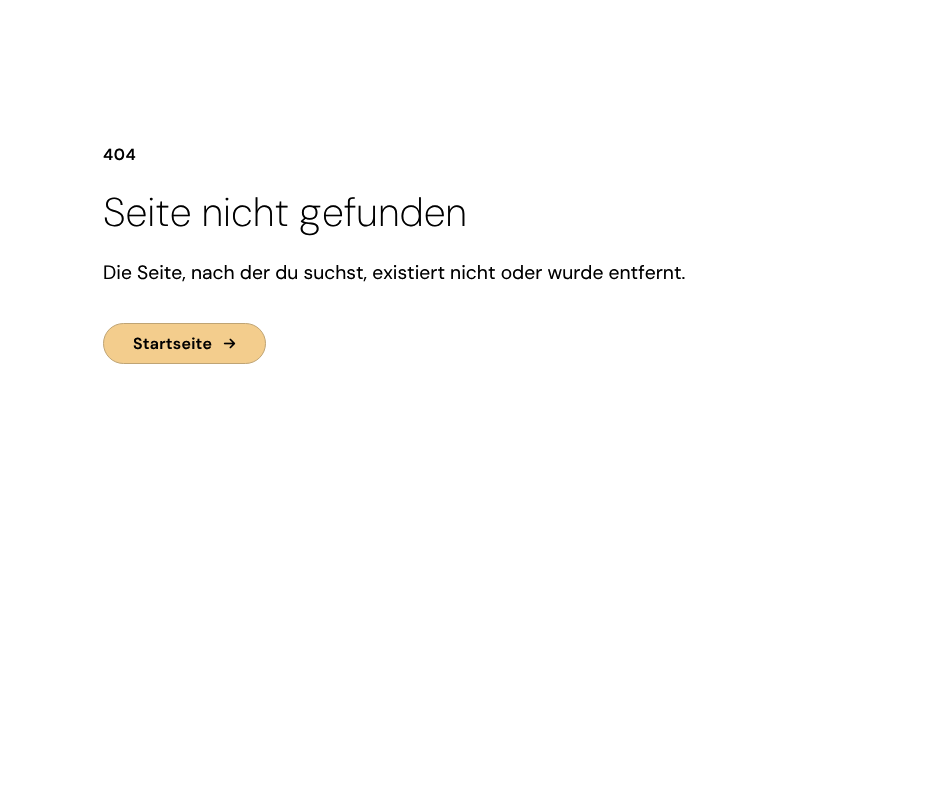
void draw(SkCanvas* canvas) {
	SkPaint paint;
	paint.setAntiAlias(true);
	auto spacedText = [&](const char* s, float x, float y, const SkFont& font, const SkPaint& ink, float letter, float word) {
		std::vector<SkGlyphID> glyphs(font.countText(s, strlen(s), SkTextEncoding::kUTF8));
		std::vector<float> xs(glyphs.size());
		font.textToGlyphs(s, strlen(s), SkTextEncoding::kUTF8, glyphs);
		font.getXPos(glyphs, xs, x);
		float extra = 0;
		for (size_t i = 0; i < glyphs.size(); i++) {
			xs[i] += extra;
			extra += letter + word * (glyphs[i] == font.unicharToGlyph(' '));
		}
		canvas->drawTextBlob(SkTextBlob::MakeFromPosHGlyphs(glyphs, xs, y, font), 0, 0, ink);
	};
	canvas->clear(0xffffffff);
	SkFont f1(fontMgr->matchFamilyStyle("DM Sans", SkFontStyle(600, SkFontStyle::kNormal_Width, SkFontStyle::kUpright_Slant)), 16);
	f1.setSubpixel(true);
	paint.setColor(0xff000000);
	spacedText("404", 103, 160, f1, paint, 0.5, 0);
	SkFont f2(fontMgr->matchFamilyStyle("DM Sans", SkFontStyle(200, SkFontStyle::kNormal_Width, SkFontStyle::kUpright_Slant)), 40);
	f2.setSubpixel(true);
	canvas->drawString("Seite nicht gefunden", 103, 226, f2, paint);
	SkFont f3(fontMgr->matchFamilyStyle("DM Sans", SkFontStyle::Normal()), 19.3);
	f3.setSubpixel(true);
	canvas->drawString("Die Seite, nach der du suchst, existiert nicht oder wurde entfernt.", 103, 279, f3, paint);
	paint.setColor(0xfff3cd8d);
	canvas->drawRoundRect(SkRect::MakeXYWH(103.5, 323.5, 162, 40), 20, 20, paint);
	paint.setStroke(true);
	paint.setStrokeWidth(1);
	paint.setColor(0xffbfa474);
	canvas->drawRoundRect(SkRect::MakeXYWH(103.5, 323.5, 162, 40), 20, 20, paint);
	paint.setStroke(false);
	paint.setColor(0xff000000);
	spacedText("Startseite", 133, 349, f1, paint, 0.25, 0);
	canvas->drawImageRect(SkImages::DeferredFromEncodedData(SkData::MakeFromFileName("img1.png")), SkRect::MakeXYWH(223, 338, 13, 11), SkSamplingOptions());
}
